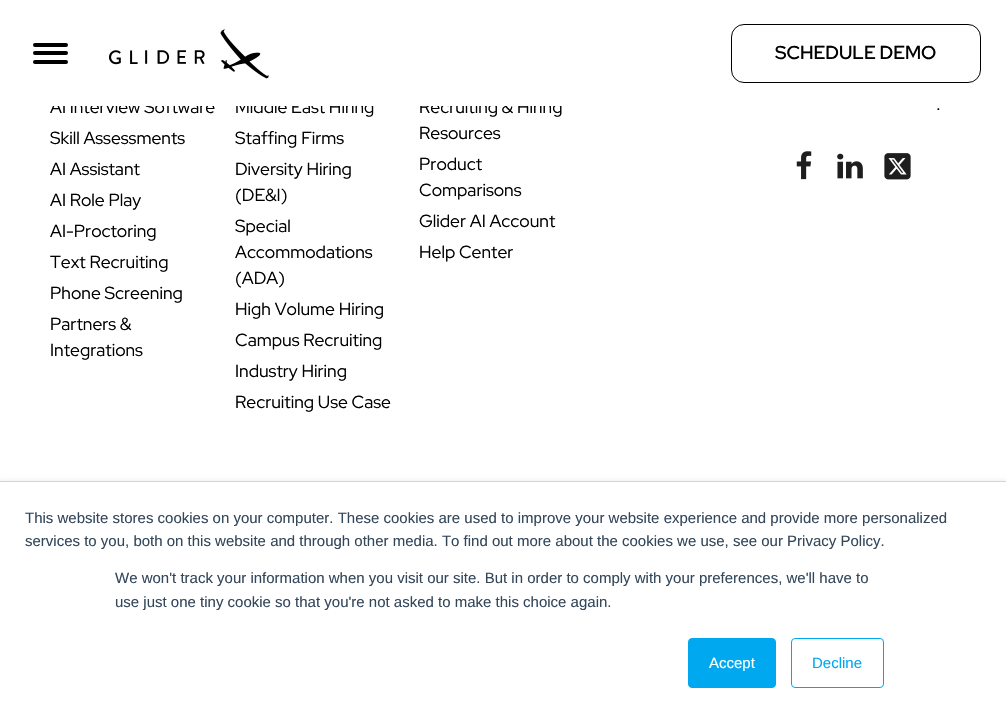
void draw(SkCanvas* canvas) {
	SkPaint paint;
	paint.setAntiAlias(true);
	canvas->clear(0xffffffff);
	SkFont f1(fontMgr->matchFamilyStyle("Red Hat Display", SkFontStyle::Normal()), 17.5);
	f1.setSubpixel(true);
	paint.setColor(0xff000000);
	canvas->drawString("AI Interview Software", 50, 113, f1, paint);
	canvas->drawString("Middle East Hiring", 235, 113, f1, paint);
	canvas->drawString("Recruiting & Hiring", 419, 113, f1, paint);
	paint.setColor(0xffffffff);
	canvas->drawRect(SkRect::MakeXYWH(53, 99, 509, 7), paint);
	paint.setColor(0xff000000);
	canvas->drawRoundRect(SkRect::MakeXYWH(33, 43, 35, 4), 2, 2, paint);
	canvas->drawRoundRect(SkRect::MakeXYWH(33, 51, 35, 4), 2, 2, paint);
	canvas->drawRoundRect(SkRect::MakeXYWH(33, 60, 35, 4), 2, 2, paint);
	canvas->drawImageRect(SkImages::DeferredFromEncodedData(SkData::MakeFromFileName("img1.png")), SkRect::MakeXYWH(109, 29, 160, 50), SkSamplingOptions());
	paint.setStroke(true);
	paint.setStrokeWidth(1);
	canvas->drawRoundRect(SkRect::MakeXYWH(731.5, 24.5, 249, 58), 12.5, 12.5, paint);
	SkFont f2(fontMgr->matchFamilyStyle("Red Hat Display", SkFontStyle(500, SkFontStyle::kNormal_Width, SkFontStyle::kUpright_Slant)), 18.75);
	f2.setSubpixel(true);
	paint.setStroke(false);
	canvas->drawString("SCHEDULE DEMO", 775, 59, f2, paint);
	canvas->drawString("Skill Assessments", 50, 144, f1, paint);
	canvas->drawString("AI Assistant", 50, 175, f1, paint);
	canvas->drawString("AI Role Play", 50, 206, f1, paint);
	canvas->drawString("AI-Proctoring", 50, 237, f1, paint);
	canvas->drawString("Text Recruiting", 50, 268, f1, paint);
	canvas->drawString("Phone Screening", 50, 299, f1, paint);
	canvas->drawString("Partners &", 50, 330, f1, paint);
	canvas->drawString("Integrations", 50, 356, f1, paint);
	canvas->drawString("Staffing Firms", 235, 144, f1, paint);
	canvas->drawString("Diversity Hiring", 235, 175, f1, paint);
	canvas->drawString("(DE&I)", 235, 201, f1, paint);
	canvas->drawString("Special", 235, 232, f1, paint);
	canvas->drawString("Accommodations", 235, 258, f1, paint);
	canvas->drawString("(ADA)", 235, 284, f1, paint);
	canvas->drawString("High Volume Hiring", 235, 315, f1, paint);
	canvas->drawString("Campus Recruiting", 235, 346, f1, paint);
	canvas->drawString("Industry Hiring", 235, 377, f1, paint);
	canvas->drawString("Recruiting Use Case", 235, 408, f1, paint);
	canvas->drawString("Resources", 419, 139, f1, paint);
	canvas->drawString("Product", 419, 170, f1, paint);
	canvas->drawString("Comparisons", 419, 196, f1, paint);
	canvas->drawString("Glider AI Account", 419, 227, f1, paint);
	canvas->drawString("Help Center", 419, 258, f1, paint);
	SkFont f3(fontMgr->matchFamilyStyle("Red Hat Display", SkFontStyle::Normal()), 18.75);
	f3.setSubpixel(true);
	canvas->drawString(".", 936, 110, f3, paint);
	canvas->drawImageRect(SkImages::DeferredFromEncodedData(SkData::MakeFromFileName("img2.png")), SkRect::MakeXYWH(796, 151, 16, 29), SkSamplingOptions());
	canvas->drawImageRect(SkImages::DeferredFromEncodedData(SkData::MakeFromFileName("img3.png")), SkRect::MakeXYWH(837, 153, 26, 26), SkSamplingOptions());
	canvas->drawImageRect(SkImages::DeferredFromEncodedData(SkData::MakeFromFileName("img4.png")), SkRect::MakeXYWH(884, 153, 27, 27), SkSamplingOptions());
	paint.setColor(0xffeaf0f6);
	paint.setMaskFilter(SkMaskFilter::MakeBlur(kNormal_SkBlurStyle, 2));
	canvas->drawRect(SkRect::MakeXYWH(0, 480, 1006, 239), paint);
	paint.setMaskFilter(nullptr);
	paint.setColor(0xffffffff);
	canvas->drawRect(SkRect::MakeXYWH(0, 482, 1006, 238), paint);
	paint.setColor(0xffcbd6e2);
	canvas->drawRect(SkRect::MakeXYWH(0, 481, 1006, 1), paint);
	SkFont f4(fontMgr->matchFamilyStyle("Liberation Sans", SkFontStyle::Normal()), 15);
	f4.setSubpixel(true);
	paint.setColor(0xff33475b);
	canvas->drawString("This website stores cookies on your computer. These cookies are used to improve your website experience and provide more personalized", 25, 523, f4, paint);
	canvas->drawString("services to you, both on this website and through other media. To find out more about the cookies we use, see our Privacy Policy.", 25, 546, f4, paint);
	canvas->drawString("We won't track your information when you visit our site. But in order to comply with your preferences, we'll have to", 115, 583, f4, paint);
	canvas->drawString("use just one tiny cookie so that you're not asked to make this choice again.", 115, 607, f4, paint);
	paint.setColor(0xff00a8f0);
	canvas->drawRoundRect(SkRect::MakeXYWH(688.5, 638.5, 87, 49), 3.5, 3.5, paint);
	paint.setStroke(true);
	canvas->drawRoundRect(SkRect::MakeXYWH(688.5, 638.5, 87, 49), 3.5, 3.5, paint);
	paint.setStroke(false);
	paint.setColor(0xffffffff);
	canvas->drawString("Accept", 709, 668, f4, paint);
	paint.setStroke(true);
	paint.setColor(0xff00a8f0);
	canvas->drawRoundRect(SkRect::MakeXYWH(791.5, 638.5, 92, 49), 3.5, 3.5, paint);
	paint.setStroke(false);
	canvas->drawString("Decline", 812, 668, f4, paint);
}
